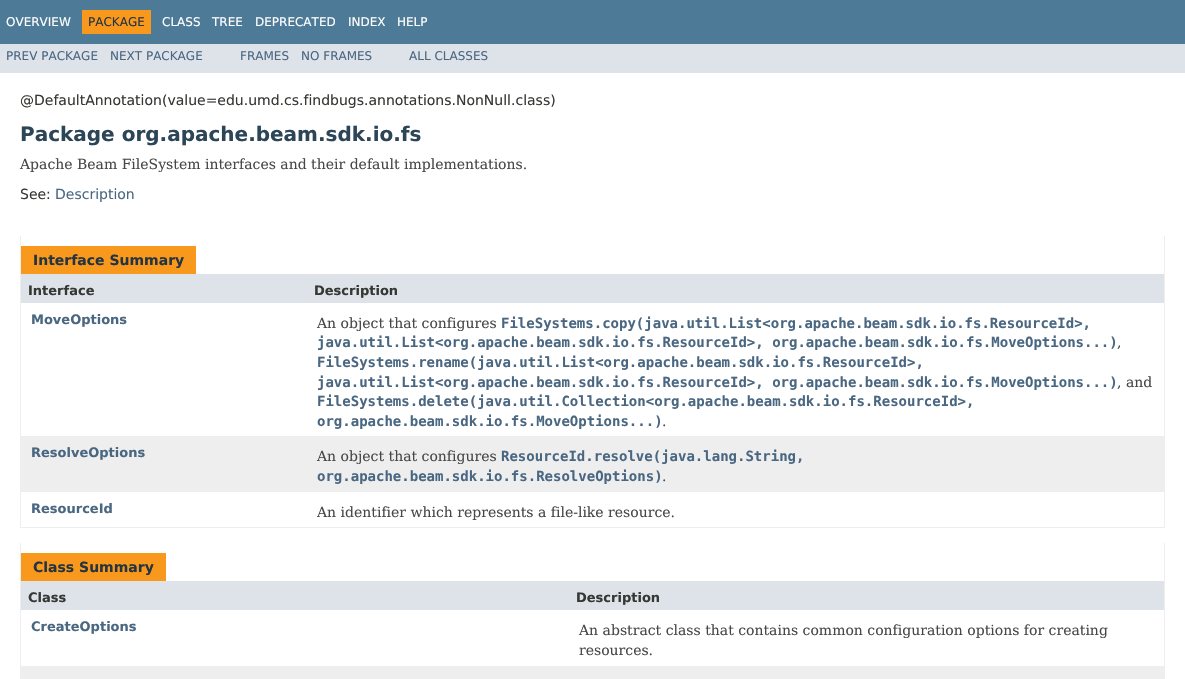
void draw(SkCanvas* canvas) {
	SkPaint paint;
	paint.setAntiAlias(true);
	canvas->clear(0xffffffff);
	paint.setColor(0xff4d7a97);
	canvas->drawRect(SkRect::MakeXYWH(0, 0, 1185, 44), paint);
	SkFont f1(fontMgr->matchFamilyStyle("DejaVu Sans", SkFontStyle::Normal()), 12);
	f1.setSubpixel(true);
	paint.setColor(0xffffffff);
	canvas->drawString("OVERVIEW", 6, 26, f1, paint);
	paint.setColor(0xfff8981d);
	canvas->drawRect(SkRect::MakeXYWH(82, 10, 69, 24), paint);
	paint.setColor(0xff253441);
	canvas->drawString("PACKAGE", 88, 26, f1, paint);
	paint.setColor(0xffffffff);
	canvas->drawString("CLASS", 162, 26, f1, paint);
	canvas->drawString("TREE", 212, 26, f1, paint);
	canvas->drawString("DEPRECATED", 255, 26, f1, paint);
	canvas->drawString("INDEX", 348, 26, f1, paint);
	canvas->drawString("HELP", 397, 26, f1, paint);
	paint.setColor(0xffdee3e9);
	canvas->drawRect(SkRect::MakeXYWH(0, 44, 1185, 29), paint);
	paint.setColor(0xff4a6782);
	canvas->drawString("PREV PACKAGE", 6, 60, f1, paint);
	canvas->drawString("NEXT PACKAGE", 110, 60, f1, paint);
	canvas->drawString("FRAMES", 240, 60, f1, paint);
	canvas->drawString("NO FRAMES", 301, 60, f1, paint);
	canvas->drawString("ALL CLASSES", 409, 60, f1, paint);
	SkFont f2(fontMgr->matchFamilyStyle("DejaVu Sans", SkFontStyle::Normal()), 14);
	f2.setSubpixel(true);
	paint.setColor(0xff353833);
	canvas->drawString("@DefaultAnnotation(value=edu.umd.cs.findbugs.annotations.NonNull.class)", 20, 105, f2, paint);
	SkFont f3(fontMgr->matchFamilyStyle("DejaVu Sans", SkFontStyle::Bold()), 20);
	f3.setSubpixel(true);
	paint.setColor(0xff2c4557);
	canvas->drawString("Package org.apache.beam.sdk.io.fs", 20, 141, f3, paint);
	SkFont f4(fontMgr->matchFamilyStyle("DejaVu Serif", SkFontStyle::Normal()), 14);
	f4.setSubpixel(true);
	paint.setColor(0xff474747);
	canvas->drawString("Apache Beam FileSystem interfaces and their default implementations.", 20, 169, f4, paint);
	paint.setColor(0xff353833);
	canvas->drawString("See:", 20, 199, f2, paint);
	paint.setColor(0xff4a6782);
	canvas->drawString("Description", 55, 199, f2, paint);
	paint.setColor(0xffeeeeee);
	canvas->drawRect(SkRect::MakeXYWH(1164, 236, 1, 292), paint);
	canvas->drawRect(SkRect::MakeXYWH(20, 527, 1145, 1), paint);
	canvas->drawRect(SkRect::MakeXYWH(20, 236, 1, 292), paint);
	paint.setColor(0xfff8981d);
	canvas->drawRect(SkRect::MakeXYWH(21, 246, 175, 28), paint);
	SkFont f5(fontMgr->matchFamilyStyle("DejaVu Sans", SkFontStyle::Bold()), 14);
	f5.setSubpixel(true);
	paint.setColor(0xff253441);
	canvas->drawString("Interface Summary", 33, 265, f5, paint);
	paint.setColor(0xffdee3e9);
	canvas->drawRect(SkRect::MakeXYWH(21, 274, 1143, 29), paint);
	SkFont f6(fontMgr->matchFamilyStyle("DejaVu Sans", SkFontStyle::Bold()), 13);
	f6.setSubpixel(true);
	paint.setColor(0xff353833);
	canvas->drawString("Interface", 28, 295, f6, paint);
	canvas->drawString("Description", 314, 295, f6, paint);
	paint.setColor(0xff4a6782);
	canvas->drawString("MoveOptions", 31, 324, f6, paint);
	paint.setColor(0xff474747);
	canvas->drawString("An object that configures", 317, 328, f4, paint);
	SkFont f7(fontMgr->matchFamilyStyle("DejaVu Sans Mono", SkFontStyle::Bold()), 14);
	f7.setSubpixel(true);
	paint.setColor(0xff4a6782);
	canvas->drawString("FileSystems.copy(java.util.List<org.apache.beam.sdk.io.fs.ResourceId>,", 501, 328, f7, paint);
	canvas->drawString("java.util.List<org.apache.beam.sdk.io.fs.ResourceId>, org.apache.beam.sdk.io.fs.MoveOptions...)", 317, 347, f7, paint);
	paint.setColor(0xff474747);
	canvas->drawString(",", 1117, 347, f4, paint);
	paint.setColor(0xff4a6782);
	canvas->drawString("FileSystems.rename(java.util.List<org.apache.beam.sdk.io.fs.ResourceId>,", 317, 367, f7, paint);
	canvas->drawString("java.util.List<org.apache.beam.sdk.io.fs.ResourceId>, org.apache.beam.sdk.io.fs.MoveOptions...)", 317, 387, f7, paint);
	paint.setColor(0xff474747);
	canvas->drawString(", and", 1117, 387, f4, paint);
	paint.setColor(0xff4a6782);
	canvas->drawString("FileSystems.delete(java.util.Collection<org.apache.beam.sdk.io.fs.ResourceId>,", 317, 406, f7, paint);
	canvas->drawString("org.apache.beam.sdk.io.fs.MoveOptions...)", 317, 426, f7, paint);
	paint.setColor(0xff474747);
	canvas->drawString(".", 662, 426, f4, paint);
	paint.setColor(0xffeeeeef);
	canvas->drawRect(SkRect::MakeXYWH(21, 436, 1143, 56), paint);
	paint.setColor(0xff4a6782);
	canvas->drawString("ResolveOptions", 31, 457, f6, paint);
	paint.setColor(0xff474747);
	canvas->drawString("An object that configures", 317, 461, f4, paint);
	paint.setColor(0xff4a6782);
	canvas->drawString("ResourceId.resolve(java.lang.String,", 501, 461, f7, paint);
	canvas->drawString("org.apache.beam.sdk.io.fs.ResolveOptions)", 317, 481, f7, paint);
	paint.setColor(0xff474747);
	canvas->drawString(".", 662, 481, f4, paint);
	paint.setColor(0xff4a6782);
	canvas->drawString("ResourceId", 31, 513, f6, paint);
	paint.setColor(0xff474747);
	canvas->drawString("An identifier which represents a file-like resource.", 317, 517, f4, paint);
	paint.setColor(0xffeeeeee);
	canvas->drawRect(SkRect::MakeXYWH(1164, 543, 1, 136), paint);
	canvas->drawRect(SkRect::MakeXYWH(20, 543, 1, 136), paint);
	paint.setColor(0xfff8981d);
	canvas->drawRect(SkRect::MakeXYWH(21, 553, 145, 28), paint);
	paint.setColor(0xff253441);
	canvas->drawString("Class Summary", 33, 572, f5, paint);
	paint.setColor(0xffdee3e9);
	canvas->drawRect(SkRect::MakeXYWH(21, 581, 1143, 29), paint);
	paint.setColor(0xff353833);
	canvas->drawString("Class", 28, 602, f6, paint);
	canvas->drawString("Description", 576, 602, f6, paint);
	paint.setColor(0xff4a6782);
	canvas->drawString("CreateOptions", 31, 631, f6, paint);
	paint.setColor(0xff474747);
	canvas->drawString("An abstract class that contains common configuration options for creating", 579, 635, f4, paint);
	canvas->drawString("resources.", 579, 655, f4, paint);
	paint.setColor(0xffeeeeef);
	canvas->drawRect(SkRect::MakeXYWH(21, 666, 1143, 13), paint);
}
